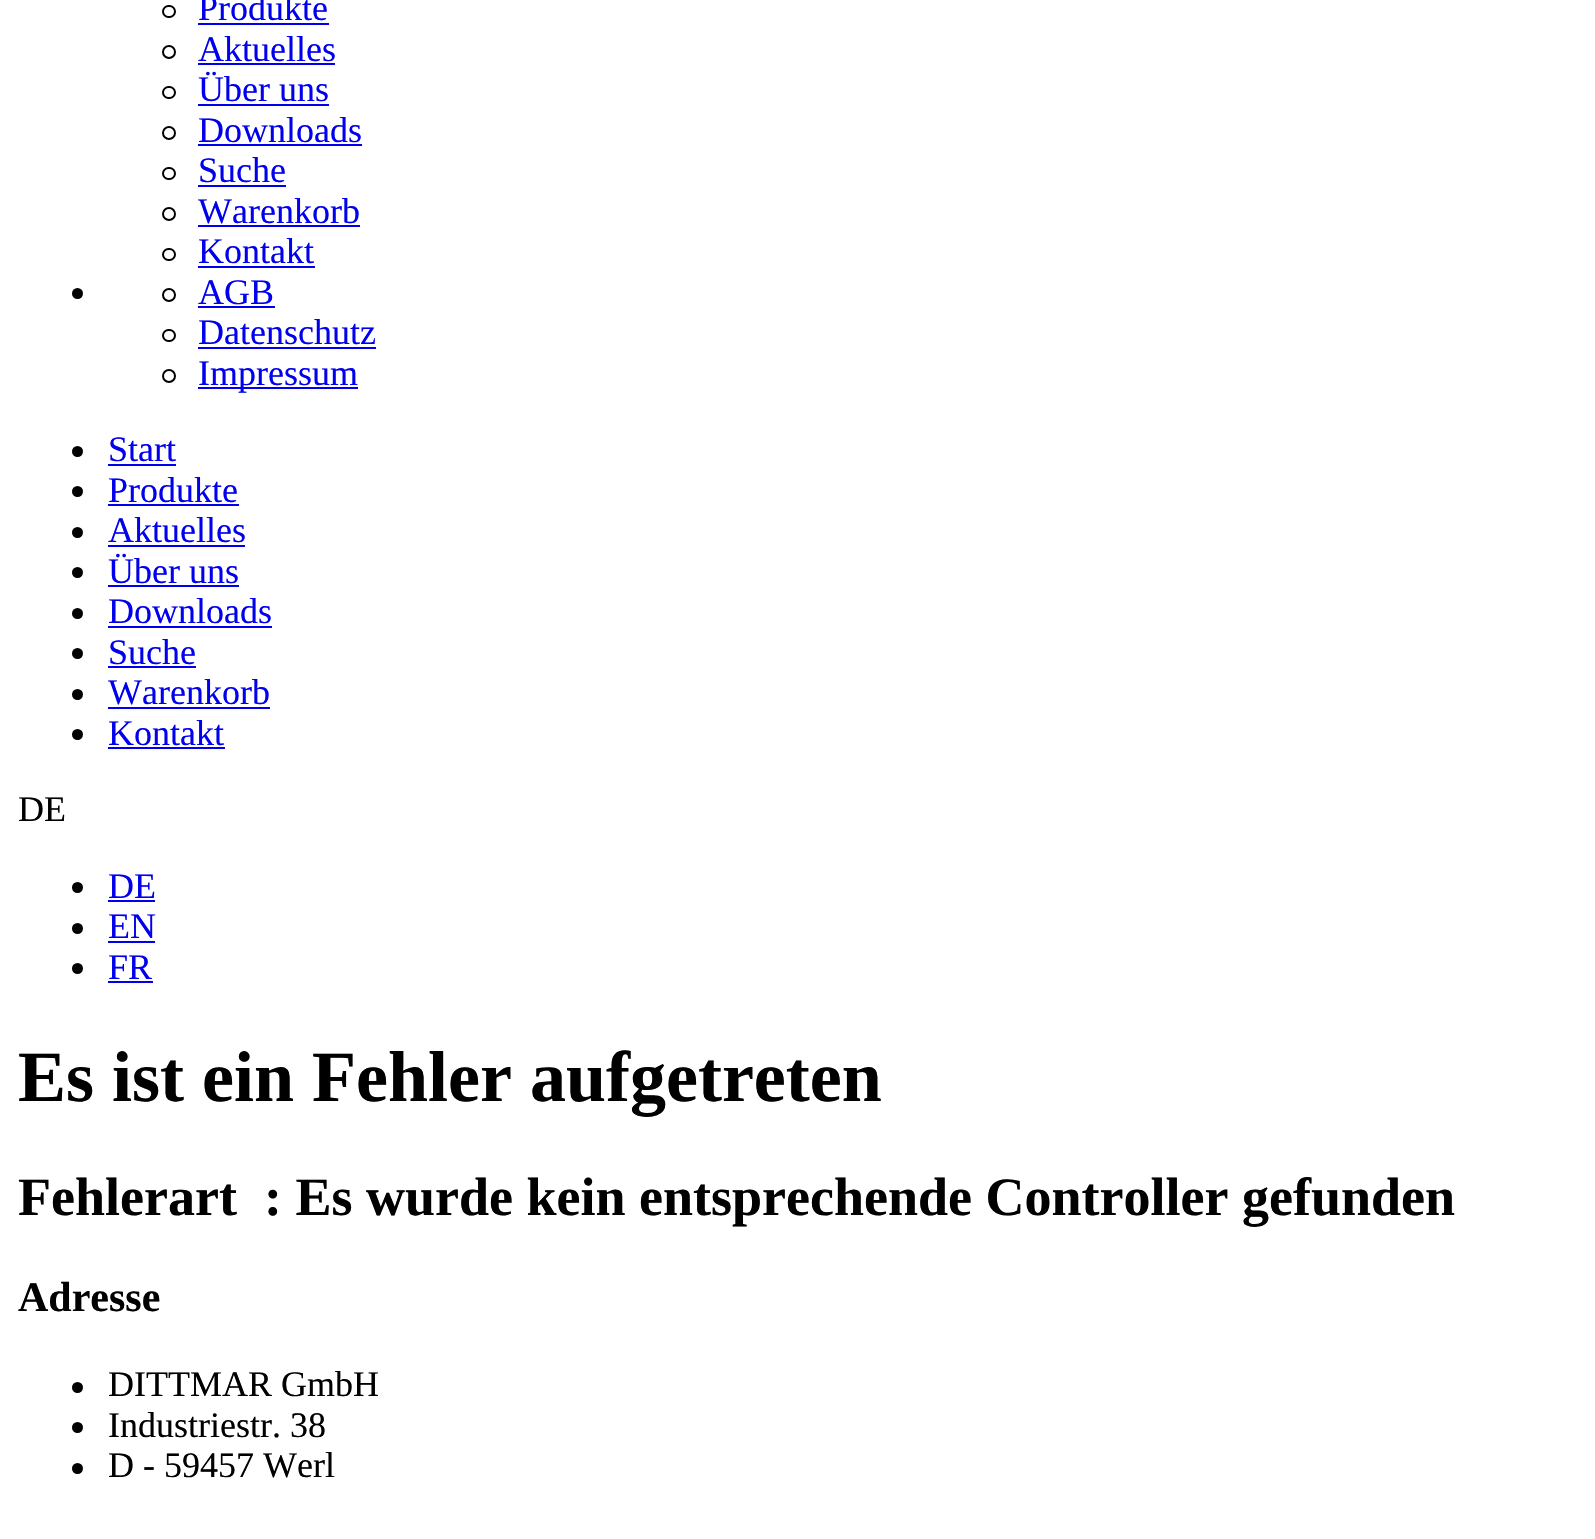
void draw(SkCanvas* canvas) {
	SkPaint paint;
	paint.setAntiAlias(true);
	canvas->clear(0xffffffff);
	paint.setStroke(true);
	paint.setStrokeWidth(2);
	paint.setColor(0xff000000);
	canvas->drawRoundRect(SkRect::MakeXYWH(163, 6, 12, 11), 5.5, 5.5, paint);
	SkFont f1(fontMgr->matchFamilyStyle("Liberation Serif", SkFontStyle::Normal()), 36);
	f1.setSubpixel(true);
	paint.setStroke(false);
	paint.setColor(0xff0000ee);
	canvas->drawString("Produkte", 198, 20, f1, paint);
	canvas->drawRect(SkRect::MakeXYWH(198, 23, 131, 2), paint);
	paint.setStroke(true);
	paint.setColor(0xff000000);
	canvas->drawCircle(169, 52, 6, paint);
	paint.setStroke(false);
	paint.setColor(0xff0000ee);
	canvas->drawString("Aktuelles", 198, 61, f1, paint);
	canvas->drawRect(SkRect::MakeXYWH(198, 63, 137, 2), paint);
	paint.setStroke(true);
	paint.setColor(0xff000000);
	canvas->drawRoundRect(SkRect::MakeXYWH(163, 87, 12, 11), 5.5, 5.5, paint);
	paint.setStroke(false);
	paint.setColor(0xff0000ee);
	canvas->drawString("Über uns", 198, 101, f1, paint);
	canvas->drawRect(SkRect::MakeXYWH(198, 104, 131, 2), paint);
	paint.setStroke(true);
	paint.setColor(0xff000000);
	canvas->drawCircle(169, 133, 6, paint);
	paint.setStroke(false);
	paint.setColor(0xff0000ee);
	canvas->drawString("Downloads", 198, 142, f1, paint);
	canvas->drawRect(SkRect::MakeXYWH(198, 144, 164, 2), paint);
	paint.setStroke(true);
	paint.setColor(0xff000000);
	canvas->drawRoundRect(SkRect::MakeXYWH(163, 168, 12, 11), 5.5, 5.5, paint);
	paint.setStroke(false);
	paint.setColor(0xff0000ee);
	canvas->drawString("Suche", 198, 182, f1, paint);
	canvas->drawRect(SkRect::MakeXYWH(198, 185, 88, 2), paint);
	paint.setStroke(true);
	paint.setColor(0xff000000);
	canvas->drawCircle(169, 214, 6, paint);
	paint.setStroke(false);
	paint.setColor(0xff0000ee);
	canvas->drawString("Warenkorb", 198, 223, f1, paint);
	canvas->drawRect(SkRect::MakeXYWH(198, 225, 162, 2), paint);
	paint.setStroke(true);
	paint.setColor(0xff000000);
	canvas->drawRoundRect(SkRect::MakeXYWH(163, 249, 12, 11), 5.5, 5.5, paint);
	paint.setStroke(false);
	paint.setColor(0xff0000ee);
	canvas->drawString("Kontakt", 198, 263, f1, paint);
	canvas->drawRect(SkRect::MakeXYWH(198, 266, 117, 2), paint);
	paint.setColor(0xff000000);
	canvas->drawCircle(77.5, 293.5, 5.5, paint);
	paint.setStroke(true);
	canvas->drawCircle(169, 295, 6, paint);
	paint.setStroke(false);
	paint.setColor(0xff0000ee);
	canvas->drawString("AGB", 198, 304, f1, paint);
	canvas->drawRect(SkRect::MakeXYWH(198, 306, 77, 2), paint);
	paint.setStroke(true);
	paint.setColor(0xff000000);
	canvas->drawRoundRect(SkRect::MakeXYWH(163, 330, 12, 11), 5.5, 5.5, paint);
	paint.setStroke(false);
	paint.setColor(0xff0000ee);
	canvas->drawString("Datenschutz", 198, 344, f1, paint);
	canvas->drawRect(SkRect::MakeXYWH(198, 347, 178, 2), paint);
	paint.setStroke(true);
	paint.setColor(0xff000000);
	canvas->drawCircle(169, 376, 6, paint);
	paint.setStroke(false);
	paint.setColor(0xff0000ee);
	canvas->drawRect(SkRect::MakeXYWH(198, 387, 160, 2), paint);
	canvas->drawString("Impressum", 198, 385, f1, paint);
	paint.setColor(0xff000000);
	canvas->drawCircle(77.5, 451.5, 5.5, paint);
	paint.setColor(0xff0000ee);
	canvas->drawString("Start", 108, 461, f1, paint);
	canvas->drawRect(SkRect::MakeXYWH(108, 464, 68, 2), paint);
	paint.setColor(0xff000000);
	canvas->drawCircle(77.5, 491.5, 5.5, paint);
	paint.setColor(0xff0000ee);
	canvas->drawString("Produkte", 108, 502, f1, paint);
	canvas->drawRect(SkRect::MakeXYWH(108, 504, 131, 2), paint);
	paint.setColor(0xff000000);
	canvas->drawCircle(77.5, 532.5, 5.5, paint);
	paint.setColor(0xff0000ee);
	canvas->drawString("Aktuelles", 108, 542, f1, paint);
	canvas->drawRect(SkRect::MakeXYWH(108, 545, 137, 2), paint);
	paint.setColor(0xff000000);
	canvas->drawCircle(77.5, 572.5, 5.5, paint);
	paint.setColor(0xff0000ee);
	canvas->drawString("Über uns", 108, 583, f1, paint);
	canvas->drawRect(SkRect::MakeXYWH(108, 585, 131, 2), paint);
	paint.setColor(0xff000000);
	canvas->drawCircle(77.5, 613.5, 5.5, paint);
	paint.setColor(0xff0000ee);
	canvas->drawString("Downloads", 108, 623, f1, paint);
	canvas->drawRect(SkRect::MakeXYWH(108, 626, 164, 2), paint);
	paint.setColor(0xff000000);
	canvas->drawCircle(77.5, 653.5, 5.5, paint);
	paint.setColor(0xff0000ee);
	canvas->drawString("Suche", 108, 664, f1, paint);
	canvas->drawRect(SkRect::MakeXYWH(108, 666, 88, 2), paint);
	paint.setColor(0xff000000);
	canvas->drawCircle(77.5, 694.5, 5.5, paint);
	paint.setColor(0xff0000ee);
	canvas->drawString("Warenkorb", 108, 704, f1, paint);
	canvas->drawRect(SkRect::MakeXYWH(108, 707, 162, 2), paint);
	paint.setColor(0xff000000);
	canvas->drawCircle(77.5, 734.5, 5.5, paint);
	paint.setColor(0xff0000ee);
	canvas->drawString("Kontakt", 108, 745, f1, paint);
	canvas->drawRect(SkRect::MakeXYWH(108, 747, 117, 2), paint);
	paint.setColor(0xff000000);
	canvas->drawString("DE", 18, 821, f1, paint);
	canvas->drawCircle(77.5, 887.5, 5.5, paint);
	paint.setColor(0xff0000ee);
	canvas->drawString("DE", 108, 898, f1, paint);
	canvas->drawRect(SkRect::MakeXYWH(108, 900, 47, 2), paint);
	paint.setColor(0xff000000);
	canvas->drawCircle(77.5, 928.5, 5.5, paint);
	paint.setColor(0xff0000ee);
	canvas->drawString("EN", 108, 938, f1, paint);
	canvas->drawRect(SkRect::MakeXYWH(108, 941, 47, 2), paint);
	paint.setColor(0xff000000);
	canvas->drawCircle(77.5, 968.5, 5.5, paint);
	paint.setColor(0xff0000ee);
	canvas->drawString("FR", 108, 979, f1, paint);
	canvas->drawRect(SkRect::MakeXYWH(108, 981, 45, 2), paint);
	SkFont f2(fontMgr->matchFamilyStyle("Liberation Serif", SkFontStyle::Bold()), 72);
	f2.setSubpixel(true);
	paint.setColor(0xff000000);
	canvas->drawString("Es ist ein Fehler aufgetreten", 18, 1101, f2, paint);
	SkFont f3(fontMgr->matchFamilyStyle("Liberation Serif", SkFontStyle::Bold()), 54);
	f3.setSubpixel(true);
	canvas->drawString("Fehlerart", 18, 1215, f3, paint);
	canvas->drawString(": Es wurde kein entsprechende Controller gefunden", 264, 1215, f3, paint);
	SkFont f4(fontMgr->matchFamilyStyle("Liberation Serif", SkFontStyle::Bold()), 42);
	f4.setSubpixel(true);
	canvas->drawString("Adresse", 18, 1311, f4, paint);
	canvas->drawCircle(77.5, 1387.5, 5.5, paint);
	canvas->drawString("DITTMAR GmbH", 108, 1396, f1, paint);
	canvas->drawCircle(77.5, 1427.5, 5.5, paint);
	canvas->drawString("Industriestr. 38", 108, 1437, f1, paint);
	canvas->drawCircle(77.5, 1468.5, 5.5, paint);
	canvas->drawString("D - 59457 Werl", 108, 1477, f1, paint);
}
